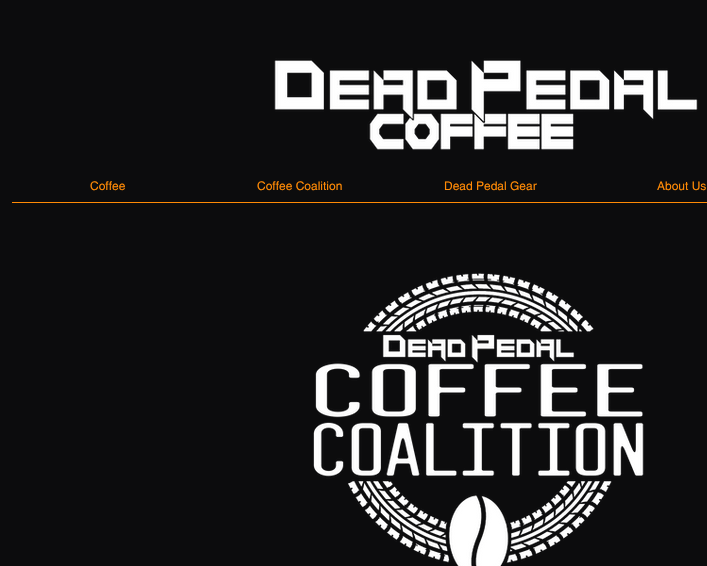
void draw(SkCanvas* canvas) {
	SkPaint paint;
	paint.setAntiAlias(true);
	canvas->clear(0xff0c0c0d);
	canvas->drawImageRect(SkImages::DeferredFromEncodedData(SkData::MakeFromFileName("img1.png")), SkRect::MakeXYWH(274, 58, 424, 92), SkSamplingOptions());
	SkFont f1(fontMgr->matchFamilyStyle("helvetica", SkFontStyle::Normal()), 12);
	f1.setSubpixel(true);
	paint.setColor(0xffff8a05);
	canvas->drawString("Coffee", 90, 190, f1, paint);
	canvas->drawString("Coffee Coalition", 257, 190, f1, paint);
	canvas->drawString("Dead Pedal Gear", 444, 190, f1, paint);
	canvas->drawString("About Us", 657, 190, f1, paint);
	canvas->drawRect(SkRect::MakeXYWH(12, 202, 695, 1), paint);
	canvas->drawImageRect(SkImages::DeferredFromEncodedData(SkData::MakeFromFileName("img2.png")), SkRect::MakeXYWH(313, 273, 331, 293), SkSamplingOptions());
}
